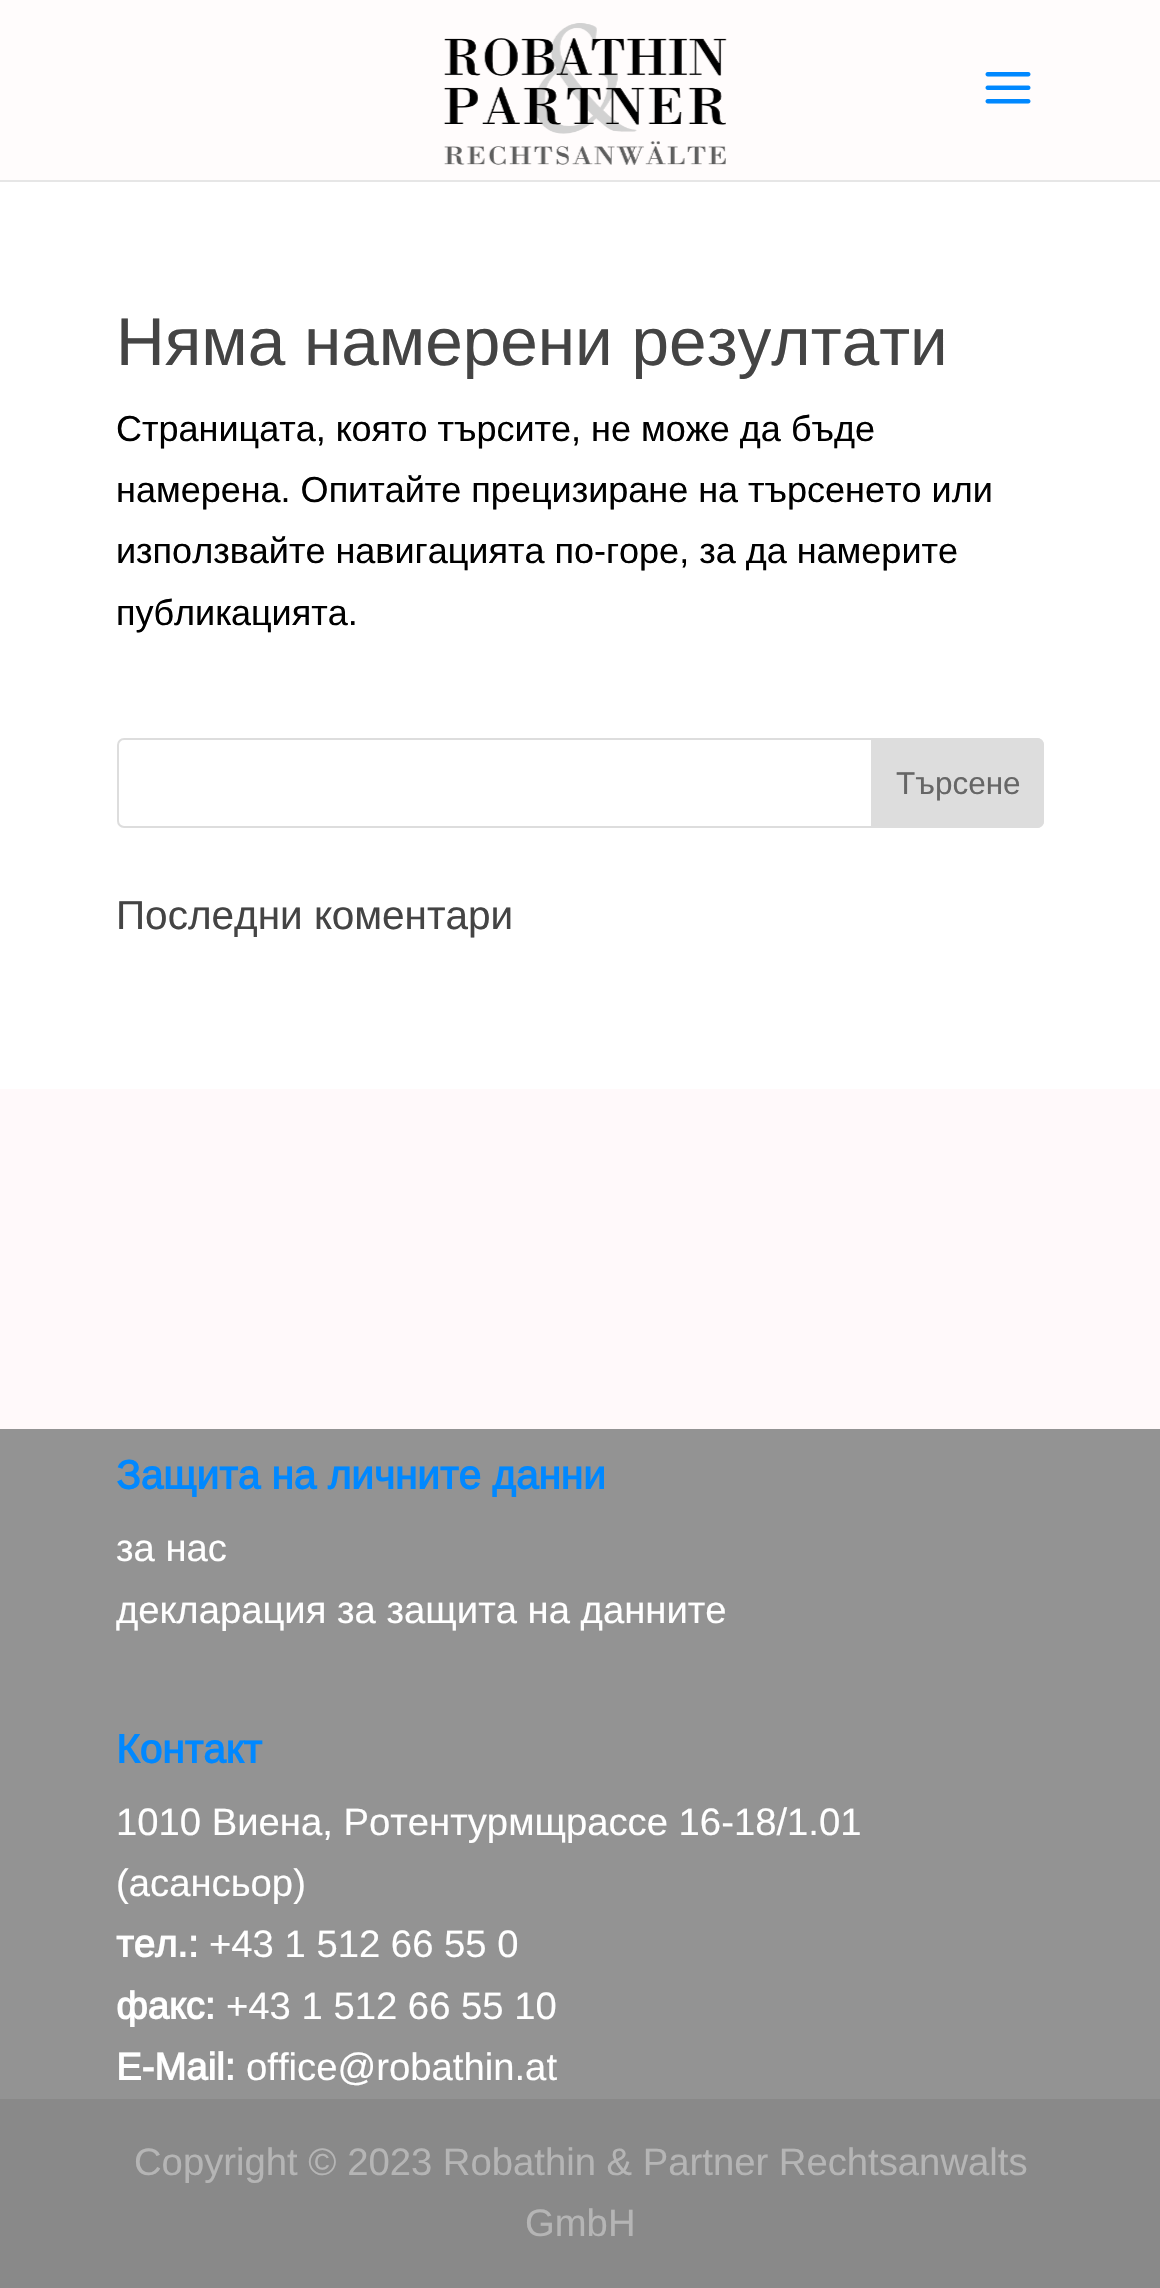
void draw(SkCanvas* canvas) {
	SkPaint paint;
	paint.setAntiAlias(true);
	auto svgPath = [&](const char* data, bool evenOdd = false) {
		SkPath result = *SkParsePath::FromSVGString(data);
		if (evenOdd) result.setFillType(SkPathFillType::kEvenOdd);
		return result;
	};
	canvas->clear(0xfffff9fa);
	paint.setColor(0xffe6e6e6);
	canvas->drawRect(SkRect::MakeXYWH(0, 180, 1160, 2), paint);
	paint.setColor(0xfffffcfc);
	canvas->drawRect(SkRect::MakeXYWH(0, 0, 1160, 180), paint);
	canvas->drawImageRect(SkImages::DeferredFromEncodedData(SkData::MakeFromFileName("img1.png")), SkRect::MakeXYWH(443, 23, 284, 142), SkSamplingOptions());
	canvas->drawImageRect(SkImages::DeferredFromEncodedData(SkData::MakeFromFileName("img2.png")), SkRect::MakeXYWH(985, 72, 46, 32), SkSamplingOptions());
	paint.setColor(0xffffffff);
	canvas->drawRect(SkRect::MakeXYWH(0, 182, 1160, 907), paint);
	SkFont f1(fontMgr->matchFamilyStyle("Arimo", SkFontStyle::Normal()), 67.5);
	f1.setSubpixel(true);
	paint.setColor(0xff444444);
	canvas->drawString("Няма намерени резултати", 116, 365, f1, paint);
	SkFont f2(fontMgr->matchFamilyStyle("Arimo", SkFontStyle::Normal()), 36);
	f2.setSubpixel(true);
	paint.setColor(0xff000000);
	canvas->drawString("Страницата, която търсите, не може да бъде", 116, 441, f2, paint);
	canvas->drawString("намерена. Опитайте прецизиране на търсенето или", 116, 502, f2, paint);
	canvas->drawString("използвайте навигацията по-горе, за да намерите", 116, 563, f2, paint);
	canvas->drawString("публикацията.", 116, 625, f2, paint);
	paint.setStroke(true);
	paint.setStrokeWidth(2);
	paint.setColor(0xffdddddd);
	canvas->drawRoundRect(SkRect::MakeXYWH(118, 739, 925, 88), 6, 6, paint);
	paint.setStroke(false);
	canvas->drawPath(svgPath("M872 739H1037C1040.5 739 1043 741.5 1043 745V821C1043 824.5 1040.5 827 1037 827H872Z"), paint);
	paint.setStroke(true);
	canvas->drawPath(svgPath("M872 739H1037C1040.5 739 1043 741.5 1043 745V821C1043 824.5 1040.5 827 1037 827H872Z"), paint);
	SkFont f3(fontMgr->matchFamilyStyle("Arimo", SkFontStyle::Normal()), 31.5);
	f3.setSubpixel(true);
	paint.setStroke(false);
	paint.setColor(0xff666666);
	canvas->drawString("Търсене", 896, 794, f3, paint);
	SkFont f4(fontMgr->matchFamilyStyle("Arimo", SkFontStyle::Normal()), 40.5);
	f4.setSubpixel(true);
	paint.setColor(0xff444444);
	canvas->drawString("Последни коментари", 116, 929, f4, paint);
	paint.setColor(0xff939393);
	canvas->drawRect(SkRect::MakeXYWH(0, 1429, 1160, 670), paint);
	SkFont f5(fontMgr->matchFamilyStyle("Arimo", SkFontStyle::Bold()), 40.5);
	f5.setSubpixel(true);
	paint.setColor(0xff0088ff);
	canvas->drawString("Защита на личните данни", 116, 1489, f5, paint);
	SkFont f6(fontMgr->matchFamilyStyle("Arimo", SkFontStyle::Normal()), 38.25);
	f6.setSubpixel(true);
	paint.setColor(0xffffffff);
	canvas->drawString("за нас", 116, 1561, f6, paint);
	canvas->drawString("декларация за защита на данните", 116, 1623, f6, paint);
	paint.setColor(0xff0088ff);
	canvas->drawString("Контакт", 116, 1763, f5, paint);
	paint.setColor(0xffffffff);
	canvas->drawString("1010 Виена, Ротентурмщрассе 16-18/1.01", 116, 1835, f6, paint);
	canvas->drawString("(асансьор)", 116, 1896, f6, paint);
	SkFont f7(fontMgr->matchFamilyStyle("Arimo", SkFontStyle::Bold()), 38.25);
	f7.setSubpixel(true);
	canvas->drawString("тел.:", 116, 1957, f7, paint);
	canvas->drawString("+43 1 512 66 55 0", 209, 1957, f6, paint);
	canvas->drawString("факс:", 116, 2019, f7, paint);
	canvas->drawString("+43 1 512 66 55 10", 226, 2019, f6, paint);
	canvas->drawString("E-Mail:", 116, 2080, f7, paint);
	canvas->drawString("office@robathin.at", 246, 2080, f6, paint);
	paint.setColor(0xff898989);
	canvas->drawRect(SkRect::MakeXYWH(0, 2099, 1160, 189), paint);
	paint.setColor(0xffb5b5b5);
	canvas->drawString("Copyright © 2023 Robathin & Partner Rechtsanwalts", 134, 2175, f6, paint);
	canvas->drawString("GmbH", 525, 2236, f6, paint);
}
